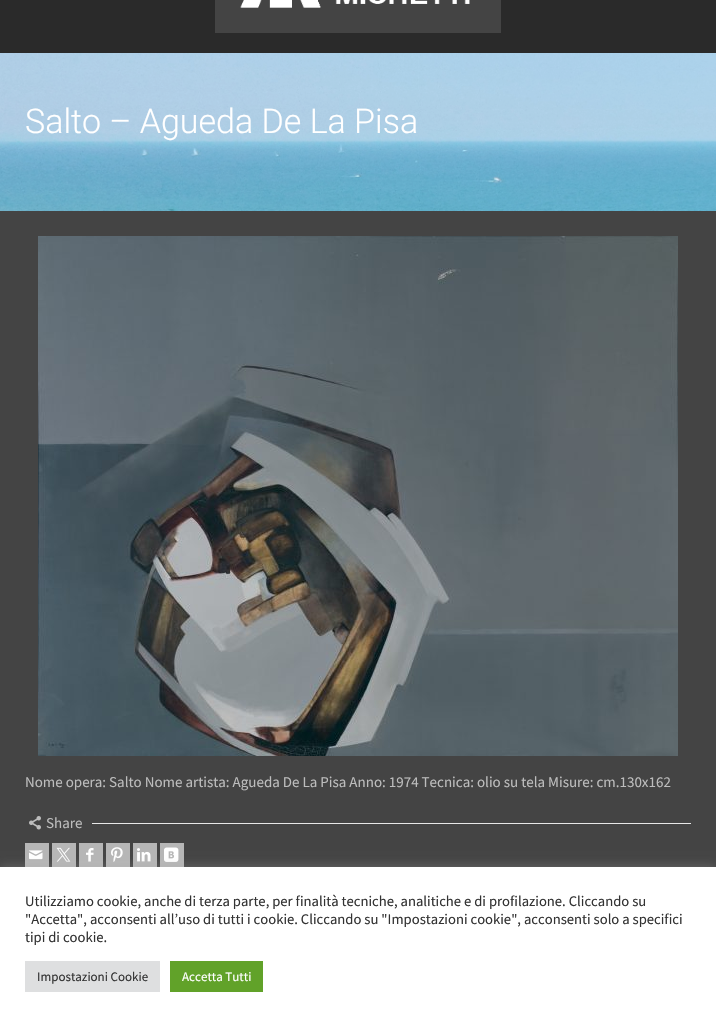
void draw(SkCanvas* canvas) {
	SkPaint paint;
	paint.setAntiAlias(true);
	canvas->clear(0xffffffff);
	canvas->drawImageRect(SkImages::DeferredFromEncodedData(SkData::MakeFromFileName("img1.png")), SkRect::MakeXYWH(0, 53, 716, 158), SkSamplingOptions());
	paint.setColor(0xff2a2a2a);
	canvas->drawRect(SkRect::MakeXYWH(0, 0, 716, 53), paint);
	paint.setColor(0xff444444);
	canvas->drawRect(SkRect::MakeXYWH(215, 0, 286, 33), paint);
	canvas->drawImageRect(SkImages::DeferredFromEncodedData(SkData::MakeFromFileName("img2.png")), SkRect::MakeXYWH(240, 0, 230, 8), SkSamplingOptions());
	paint.setColor(0x4dffffff);
	canvas->drawRect(SkRect::MakeXYWH(0, 53, 716, 158), paint);
	SkFont f1(fontMgr->matchFamilyStyle("Roboto", SkFontStyle(300, SkFontStyle::kNormal_Width, SkFontStyle::kUpright_Slant)), 34);
	f1.setSubpixel(true);
	paint.setColor(0xffffffff);
	canvas->drawString("Salto – Agueda De La Pisa", 25, 133, f1, paint);
	paint.setColor(0xff444444);
	canvas->drawRect(SkRect::MakeXYWH(0, 211, 716, 656), paint);
	canvas->drawImageRect(SkImages::DeferredFromEncodedData(SkData::MakeFromFileName("img3.png")), SkRect::MakeXYWH(38, 236, 640, 520), SkSamplingOptions());
	SkFont f2(fontMgr->matchFamilyStyle("Source Sans Pro", SkFontStyle::Normal()), 15);
	f2.setSubpixel(true);
	paint.setColor(0xffbdbdbd);
	canvas->drawString("Nome opera: Salto Nome artista: Agueda De La Pisa Anno: 1974 Tecnica: olio su tela Misure: cm.130x162", 25, 787, f2, paint);
	canvas->drawImageRect(SkImages::DeferredFromEncodedData(SkData::MakeFromFileName("img4.png")), SkRect::MakeXYWH(29, 816, 12, 14), SkSamplingOptions());
	canvas->drawString("Share", 46, 828, f2, paint);
	paint.setColor(0xffe8e8e8);
	canvas->drawRect(SkRect::MakeXYWH(92, 823, 599, 1), paint);
	paint.setColor(0xffb6b6b6);
	canvas->drawRect(SkRect::MakeXYWH(25, 843, 24, 24), paint);
	canvas->drawImageRect(SkImages::DeferredFromEncodedData(SkData::MakeFromFileName("img5.png")), SkRect::MakeXYWH(29, 850, 14, 10), SkSamplingOptions());
	canvas->drawRect(SkRect::MakeXYWH(52, 843, 24, 24), paint);
	canvas->drawImageRect(SkImages::DeferredFromEncodedData(SkData::MakeFromFileName("img6.png")), SkRect::MakeXYWH(56, 847, 15, 15), SkSamplingOptions());
	canvas->drawRect(SkRect::MakeXYWH(79, 843, 24, 24), paint);
	canvas->drawImageRect(SkImages::DeferredFromEncodedData(SkData::MakeFromFileName("img7.png")), SkRect::MakeXYWH(86, 848, 8, 14), SkSamplingOptions());
	canvas->drawRect(SkRect::MakeXYWH(106, 843, 24, 24), paint);
	canvas->drawImageRect(SkImages::DeferredFromEncodedData(SkData::MakeFromFileName("img8.png")), SkRect::MakeXYWH(111, 847, 12, 15), SkSamplingOptions());
	canvas->drawRect(SkRect::MakeXYWH(133, 843, 24, 24), paint);
	canvas->drawImageRect(SkImages::DeferredFromEncodedData(SkData::MakeFromFileName("img9.png")), SkRect::MakeXYWH(137, 848, 14, 14), SkSamplingOptions());
	canvas->drawRect(SkRect::MakeXYWH(160, 843, 24, 24), paint);
	canvas->drawImageRect(SkImages::DeferredFromEncodedData(SkData::MakeFromFileName("img10.png")), SkRect::MakeXYWH(164, 847, 15, 15), SkSamplingOptions());
	paint.setColor(0x4dacabab);
	paint.setMaskFilter(SkMaskFilter::MakeBlur(kNormal_SkBlurStyle, 5));
	canvas->drawRect(SkRect::MakeXYWH(0, 866, 716, 155), paint);
	paint.setMaskFilter(nullptr);
	paint.setColor(0xffffffff);
	canvas->drawRect(SkRect::MakeXYWH(0, 867, 716, 155), paint);
	SkFont f3(fontMgr->matchFamilyStyle("Source Sans Pro", SkFontStyle::Normal()), 14.65);
	f3.setSubpixel(true);
	paint.setColor(0xff333333);
	canvas->drawString("Utilizziamo cookie, anche di terza parte, per finalità tecniche, analitiche e di profilazione. Cliccando su", 25, 906, f3, paint);
	canvas->drawString("\"Accetta\", acconsenti all’uso di tutti i cookie. Cliccando su \"Impostazioni cookie\", acconsenti solo a specifici", 25, 924, f3, paint);
	canvas->drawString("tipi di cookie.", 25, 942, f3, paint);
	paint.setColor(0xffdedfe0);
	canvas->drawRect(SkRect::MakeXYWH(25, 961, 135, 31), paint);
	SkFont f4(fontMgr->matchFamilyStyle("Source Sans Pro", SkFontStyle::Normal()), 13);
	f4.setSubpixel(true);
	paint.setColor(0xff333333);
	canvas->drawString("Impostazioni Cookie", 37, 981, f4, paint);
	paint.setColor(0xff61a229);
	canvas->drawRect(SkRect::MakeXYWH(170, 961, 93, 31), paint);
	paint.setColor(0xffffffff);
	canvas->drawString("Accetta Tutti", 182, 981, f4, paint);
}
